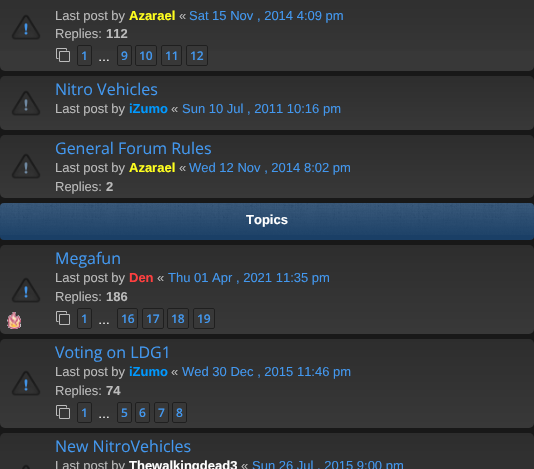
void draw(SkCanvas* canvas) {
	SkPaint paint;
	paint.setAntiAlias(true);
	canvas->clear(0xff181818);
	paint.setColor(0xff383838);
	canvas->drawRoundRect(SkRect::MakeXYWH(0, -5, 534, 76), 5, 5, paint);
	{
		const SkColor colors[] = {0x33000000, 0x00000000};
		const float stops[] = {0, 1};
		const SkPoint ends[] = {{267, -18}, {267, 71}};
		paint.setShader(SkGradientShader::MakeLinear(ends, colors, stops, 2, SkTileMode::kClamp));
		paint.setAlpha(255);
	}
	canvas->drawRect(SkRect::MakeXYWH(0, 0, 534, 51), paint);
	canvas->drawImageRect(SkImages::DeferredFromEncodedData(SkData::MakeFromFileName("img1.png")), SkRect::MakeXYWH(11, 14, 30, 26), SkSamplingOptions());
	SkFont f1(fontMgr->matchFamilyStyle("Liberation Sans", SkFontStyle::Normal()), 13);
	f1.setSubpixel(true);
	paint.setShader(nullptr);
	paint.setColor(0xffbbbbbb);
	canvas->drawString("Last post by", 55, 20, f1, paint);
	SkFont f2(fontMgr->matchFamilyStyle("Liberation Sans", SkFontStyle::Bold()), 13);
	f2.setSubpixel(true);
	paint.setColor(0xffffff1f);
	canvas->drawString("Azarael", 129, 20, f2, paint);
	paint.setColor(0xffbbbbbb);
	canvas->drawString("«", 179, 20, f1, paint);
	paint.setColor(0xff4398ef);
	canvas->drawString("Sat 15 Nov , 2014 4:09 pm", 189, 20, f1, paint);
	paint.setColor(0xffbbbbbb);
	canvas->drawString("Replies:", 55, 38, f1, paint);
	canvas->drawString("112", 106, 38, f2, paint);
	canvas->drawImageRect(SkImages::DeferredFromEncodedData(SkData::MakeFromFileName("img2.png")), SkRect::MakeXYWH(56, 48, 14, 14), SkSamplingOptions());
	paint.setColor(0xff383838);
	canvas->drawRoundRect(SkRect::MakeXYWH(77.5, 45.5, 14, 20), 1.5, 1.5, paint);
	paint.setStroke(true);
	paint.setStrokeWidth(1);
	paint.setColor(0xff1f1f1f);
	canvas->drawRoundRect(SkRect::MakeXYWH(77.5, 45.5, 14, 20), 1.5, 1.5, paint);
	SkFont f3(fontMgr->matchFamilyStyle("Open Sans", SkFontStyle(600, SkFontStyle::kNormal_Width, SkFontStyle::kUpright_Slant)), 12);
	f3.setSubpixel(true);
	paint.setStroke(false);
	paint.setColor(0xff4398ef);
	canvas->drawString("1", 81, 60, f3, paint);
	SkFont f4(fontMgr->matchFamilyStyle("Liberation Sans", SkFontStyle::Normal()), 12);
	f4.setSubpixel(true);
	paint.setColor(0xffffffff);
	canvas->drawString("…", 98, 61, f4, paint);
	paint.setColor(0xff383838);
	canvas->drawRoundRect(SkRect::MakeXYWH(117.5, 45.5, 14, 20), 1.5, 1.5, paint);
	paint.setStroke(true);
	paint.setColor(0xff1f1f1f);
	canvas->drawRoundRect(SkRect::MakeXYWH(117.5, 45.5, 14, 20), 1.5, 1.5, paint);
	paint.setStroke(false);
	paint.setColor(0xff4398ef);
	canvas->drawString("9", 121, 60, f3, paint);
	paint.setColor(0xff383838);
	canvas->drawRoundRect(SkRect::MakeXYWH(135.5, 45.5, 21, 20), 1.5, 1.5, paint);
	paint.setStroke(true);
	paint.setColor(0xff1f1f1f);
	canvas->drawRoundRect(SkRect::MakeXYWH(135.5, 45.5, 21, 20), 1.5, 1.5, paint);
	paint.setStroke(false);
	paint.setColor(0xff4398ef);
	canvas->drawString("10", 139, 60, f3, paint);
	paint.setColor(0xff383838);
	canvas->drawRoundRect(SkRect::MakeXYWH(161.5, 45.5, 20, 20), 1.5, 1.5, paint);
	paint.setStroke(true);
	paint.setColor(0xff1f1f1f);
	canvas->drawRoundRect(SkRect::MakeXYWH(161.5, 45.5, 20, 20), 1.5, 1.5, paint);
	paint.setStroke(false);
	paint.setColor(0xff4398ef);
	canvas->drawString("11", 165, 60, f3, paint);
	paint.setColor(0xff383838);
	canvas->drawRoundRect(SkRect::MakeXYWH(186.5, 45.5, 21, 20), 1.5, 1.5, paint);
	paint.setStroke(true);
	paint.setColor(0xff1f1f1f);
	canvas->drawRoundRect(SkRect::MakeXYWH(186.5, 45.5, 21, 20), 1.5, 1.5, paint);
	paint.setStroke(false);
	paint.setColor(0xff4398ef);
	canvas->drawString("12", 190, 60, f3, paint);
	paint.setColor(0xff383838);
	canvas->drawRoundRect(SkRect::MakeXYWH(0, 76, 534, 54), 5, 5, paint);
	{
		const SkColor colors[] = {0x33000000, 0x00000000};
		const float stops[] = {0, 1};
		const SkPoint ends[] = {{267, 76}, {267, 130}};
		paint.setShader(SkGradientShader::MakeLinear(ends, colors, stops, 2, SkTileMode::kClamp));
		paint.setAlpha(255);
	}
	canvas->drawRoundRect(SkRect::MakeXYWH(0, 76, 534, 54), 5, 5, paint);
	canvas->drawImageRect(SkImages::DeferredFromEncodedData(SkData::MakeFromFileName("img3.png")), SkRect::MakeXYWH(11, 90, 30, 26), SkSamplingOptions());
	SkFont f5(fontMgr->matchFamilyStyle("Open Sans", SkFontStyle::Normal()), 16);
	f5.setSubpixel(true);
	paint.setShader(nullptr);
	paint.setColor(0xff4398ef);
	canvas->drawString("Nitro Vehicles", 55, 95, f5, paint);
	paint.setColor(0xffbbbbbb);
	canvas->drawString("Last post by", 55, 113, f1, paint);
	paint.setColor(0xff0099ff);
	canvas->drawString("iZumo", 129, 113, f2, paint);
	paint.setColor(0xffbbbbbb);
	canvas->drawString("«", 171, 113, f1, paint);
	paint.setColor(0xff4398ef);
	canvas->drawString("Sun 10 Jul , 2011 10:16 pm", 182, 113, f1, paint);
	paint.setColor(0xff383838);
	canvas->drawRoundRect(SkRect::MakeXYWH(0, 135, 534, 63), 5, 5, paint);
	{
		const SkColor colors[] = {0x33000000, 0x00000000};
		const float stops[] = {0, 1};
		const SkPoint ends[] = {{267, 135}, {267, 198}};
		paint.setShader(SkGradientShader::MakeLinear(ends, colors, stops, 2, SkTileMode::kClamp));
		paint.setAlpha(255);
	}
	canvas->drawRoundRect(SkRect::MakeXYWH(0, 135, 534, 63), 5, 5, paint);
	canvas->drawImageRect(SkImages::DeferredFromEncodedData(SkData::MakeFromFileName("img4.png")), SkRect::MakeXYWH(11, 153, 30, 26), SkSamplingOptions());
	paint.setShader(nullptr);
	paint.setColor(0xff4398ef);
	canvas->drawString("General Forum Rules", 55, 154, f5, paint);
	paint.setColor(0xffbbbbbb);
	canvas->drawString("Last post by", 55, 172, f1, paint);
	paint.setColor(0xffffff1f);
	canvas->drawString("Azarael", 129, 172, f2, paint);
	paint.setColor(0xffbbbbbb);
	canvas->drawString("«", 179, 172, f1, paint);
	paint.setColor(0xff4398ef);
	canvas->drawString("Wed 12 Nov , 2014 8:02 pm", 189, 172, f1, paint);
	paint.setColor(0xffbbbbbb);
	canvas->drawString("Replies:", 55, 191, f1, paint);
	canvas->drawString("2", 106, 191, f2, paint);
	paint.setColor(0xff1a3f66);
	canvas->drawRoundRect(SkRect::MakeXYWH(0, 203, 534, 37), 4, 4, paint);
	canvas->drawImageRect(SkImages::DeferredFromEncodedData(SkData::MakeFromFileName("img5.png")), SkRect::MakeXYWH(0, 203, 534, 32), SkSamplingOptions());
	paint.setColor(0xffffffff);
	canvas->drawString("Topics", 246, 224, f2, paint);
	paint.setColor(0xff383838);
	canvas->drawRoundRect(SkRect::MakeXYWH(0, 245, 534, 89), 5, 5, paint);
	{
		const SkColor colors[] = {0x33000000, 0x00000000};
		const float stops[] = {0, 1};
		const SkPoint ends[] = {{267, 245}, {267, 334}};
		paint.setShader(SkGradientShader::MakeLinear(ends, colors, stops, 2, SkTileMode::kClamp));
		paint.setAlpha(255);
	}
	canvas->drawRoundRect(SkRect::MakeXYWH(0, 245, 534, 89), 5, 5, paint);
	canvas->drawImageRect(SkImages::DeferredFromEncodedData(SkData::MakeFromFileName("img1.png")), SkRect::MakeXYWH(11, 277, 30, 26), SkSamplingOptions());
	canvas->drawImageRect(SkImages::DeferredFromEncodedData(SkData::MakeFromFileName("img6.png")), SkRect::MakeXYWH(7, 312, 14, 17), SkSamplingOptions());
	paint.setShader(nullptr);
	paint.setColor(0xff4398ef);
	canvas->drawString("Megafun", 55, 264, f5, paint);
	paint.setColor(0xffbbbbbb);
	canvas->drawString("Last post by", 55, 282, f1, paint);
	paint.setColor(0xffff3f3f);
	canvas->drawString("Den", 129, 282, f2, paint);
	paint.setColor(0xffbbbbbb);
	canvas->drawString("«", 157, 282, f1, paint);
	paint.setColor(0xff4398ef);
	canvas->drawString("Thu 01 Apr , 2021 11:35 pm", 168, 282, f1, paint);
	paint.setColor(0xffbbbbbb);
	canvas->drawString("Replies:", 55, 301, f1, paint);
	canvas->drawString("186", 106, 301, f2, paint);
	canvas->drawImageRect(SkImages::DeferredFromEncodedData(SkData::MakeFromFileName("img2.png")), SkRect::MakeXYWH(56, 311, 14, 14), SkSamplingOptions());
	paint.setColor(0xff383838);
	canvas->drawRoundRect(SkRect::MakeXYWH(77.5, 308.5, 14, 20), 1.5, 1.5, paint);
	paint.setStroke(true);
	paint.setColor(0xff1f1f1f);
	canvas->drawRoundRect(SkRect::MakeXYWH(77.5, 308.5, 14, 20), 1.5, 1.5, paint);
	paint.setStroke(false);
	paint.setColor(0xff4398ef);
	canvas->drawString("1", 81, 323, f3, paint);
	paint.setColor(0xffffffff);
	canvas->drawString("…", 98, 324, f4, paint);
	paint.setColor(0xff383838);
	canvas->drawRoundRect(SkRect::MakeXYWH(117.5, 308.5, 20, 20), 1.5, 1.5, paint);
	paint.setStroke(true);
	paint.setColor(0xff1f1f1f);
	canvas->drawRoundRect(SkRect::MakeXYWH(117.5, 308.5, 20, 20), 1.5, 1.5, paint);
	paint.setStroke(false);
	paint.setColor(0xff4398ef);
	canvas->drawString("16", 121, 323, f3, paint);
	paint.setColor(0xff383838);
	canvas->drawRoundRect(SkRect::MakeXYWH(142.5, 308.5, 21, 20), 1.5, 1.5, paint);
	paint.setStroke(true);
	paint.setColor(0xff1f1f1f);
	canvas->drawRoundRect(SkRect::MakeXYWH(142.5, 308.5, 21, 20), 1.5, 1.5, paint);
	paint.setStroke(false);
	paint.setColor(0xff4398ef);
	canvas->drawString("17", 146, 323, f3, paint);
	paint.setColor(0xff383838);
	canvas->drawRoundRect(SkRect::MakeXYWH(167.5, 308.5, 21, 20), 1.5, 1.5, paint);
	paint.setStroke(true);
	paint.setColor(0xff1f1f1f);
	canvas->drawRoundRect(SkRect::MakeXYWH(167.5, 308.5, 21, 20), 1.5, 1.5, paint);
	paint.setStroke(false);
	paint.setColor(0xff4398ef);
	canvas->drawString("18", 171, 323, f3, paint);
	paint.setColor(0xff383838);
	canvas->drawRoundRect(SkRect::MakeXYWH(193.5, 308.5, 21, 20), 1.5, 1.5, paint);
	paint.setStroke(true);
	paint.setColor(0xff1f1f1f);
	canvas->drawRoundRect(SkRect::MakeXYWH(193.5, 308.5, 21, 20), 1.5, 1.5, paint);
	paint.setStroke(false);
	paint.setColor(0xff4398ef);
	canvas->drawString("19", 197, 323, f3, paint);
	paint.setColor(0xff383838);
	canvas->drawRoundRect(SkRect::MakeXYWH(0, 339, 534, 89), 5, 5, paint);
	{
		const SkColor colors[] = {0x33000000, 0x00000000};
		const float stops[] = {0, 1};
		const SkPoint ends[] = {{267, 339}, {267, 428}};
		paint.setShader(SkGradientShader::MakeLinear(ends, colors, stops, 2, SkTileMode::kClamp));
		paint.setAlpha(255);
	}
	canvas->drawRoundRect(SkRect::MakeXYWH(0, 339, 534, 89), 5, 5, paint);
	canvas->drawImageRect(SkImages::DeferredFromEncodedData(SkData::MakeFromFileName("img7.png")), SkRect::MakeXYWH(11, 370, 30, 26), SkSamplingOptions());
	paint.setShader(nullptr);
	paint.setColor(0xff4398ef);
	canvas->drawString("Voting on LDG1", 55, 358, f5, paint);
	paint.setColor(0xffbbbbbb);
	canvas->drawString("Last post by", 55, 376, f1, paint);
	paint.setColor(0xff0099ff);
	canvas->drawString("iZumo", 129, 376, f2, paint);
	paint.setColor(0xffbbbbbb);
	canvas->drawString("«", 171, 376, f1, paint);
	paint.setColor(0xff4398ef);
	canvas->drawString("Wed 30 Dec , 2015 11:46 pm", 182, 376, f1, paint);
	paint.setColor(0xffbbbbbb);
	canvas->drawString("Replies:", 55, 395, f1, paint);
	canvas->drawString("74", 106, 395, f2, paint);
	canvas->drawImageRect(SkImages::DeferredFromEncodedData(SkData::MakeFromFileName("img2.png")), SkRect::MakeXYWH(56, 405, 14, 14), SkSamplingOptions());
	paint.setColor(0xff383838);
	canvas->drawRoundRect(SkRect::MakeXYWH(77.5, 402.5, 14, 20), 1.5, 1.5, paint);
	paint.setStroke(true);
	paint.setColor(0xff1f1f1f);
	canvas->drawRoundRect(SkRect::MakeXYWH(77.5, 402.5, 14, 20), 1.5, 1.5, paint);
	paint.setStroke(false);
	paint.setColor(0xff4398ef);
	canvas->drawString("1", 81, 417, f3, paint);
	paint.setColor(0xffffffff);
	canvas->drawString("…", 98, 418, f4, paint);
	paint.setColor(0xff383838);
	canvas->drawRoundRect(SkRect::MakeXYWH(117.5, 402.5, 14, 20), 1.5, 1.5, paint);
	paint.setStroke(true);
	paint.setColor(0xff1f1f1f);
	canvas->drawRoundRect(SkRect::MakeXYWH(117.5, 402.5, 14, 20), 1.5, 1.5, paint);
	paint.setStroke(false);
	paint.setColor(0xff4398ef);
	canvas->drawString("5", 121, 417, f3, paint);
	paint.setColor(0xff383838);
	canvas->drawRoundRect(SkRect::MakeXYWH(135.5, 402.5, 14, 20), 1.5, 1.5, paint);
	paint.setStroke(true);
	paint.setColor(0xff1f1f1f);
	canvas->drawRoundRect(SkRect::MakeXYWH(135.5, 402.5, 14, 20), 1.5, 1.5, paint);
	paint.setStroke(false);
	paint.setColor(0xff4398ef);
	canvas->drawString("6", 139, 417, f3, paint);
	paint.setColor(0xff383838);
	canvas->drawRoundRect(SkRect::MakeXYWH(154.5, 402.5, 14, 20), 1.5, 1.5, paint);
	paint.setStroke(true);
	paint.setColor(0xff1f1f1f);
	canvas->drawRoundRect(SkRect::MakeXYWH(154.5, 402.5, 14, 20), 1.5, 1.5, paint);
	paint.setStroke(false);
	paint.setColor(0xff4398ef);
	canvas->drawString("7", 158, 417, f3, paint);
	paint.setColor(0xff383838);
	canvas->drawRoundRect(SkRect::MakeXYWH(172.5, 402.5, 14, 20), 1.5, 1.5, paint);
	paint.setStroke(true);
	paint.setColor(0xff1f1f1f);
	canvas->drawRoundRect(SkRect::MakeXYWH(172.5, 402.5, 14, 20), 1.5, 1.5, paint);
	paint.setStroke(false);
	paint.setColor(0xff4398ef);
	canvas->drawString("8", 176, 417, f3, paint);
	paint.setColor(0xff383838);
	canvas->drawRoundRect(SkRect::MakeXYWH(0, 433, 534, 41), 5, 5, paint);
	{
		const SkColor colors[] = {0x33000000, 0x00000000};
		const float stops[] = {0, 1};
		const SkPoint ends[] = {{267, 433}, {267, 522}};
		paint.setShader(SkGradientShader::MakeLinear(ends, colors, stops, 2, SkTileMode::kClamp));
		paint.setAlpha(255);
	}
	canvas->drawRoundRect(SkRect::MakeXYWH(0, 433, 534, 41), 5, 5, paint);
	canvas->drawImageRect(SkImages::DeferredFromEncodedData(SkData::MakeFromFileName("img8.png")), SkRect::MakeXYWH(22, 464, 8, 5), SkSamplingOptions());
	paint.setShader(nullptr);
	paint.setColor(0xff4398ef);
	canvas->drawString("New NitroVehicles", 55, 452, f5, paint);
	paint.setColor(0xffbbbbbb);
	canvas->drawString("Last post by", 55, 470, f1, paint);
	paint.setColor(0xffffffff);
	canvas->drawString("Thewalkingdead3", 129, 470, f2, paint);
	paint.setColor(0xffbbbbbb);
	canvas->drawString("«", 241, 470, f1, paint);
	paint.setColor(0xff4398ef);
	canvas->drawString("Sun 26 Jul , 2015 9:00 pm", 252, 470, f1, paint);
}
